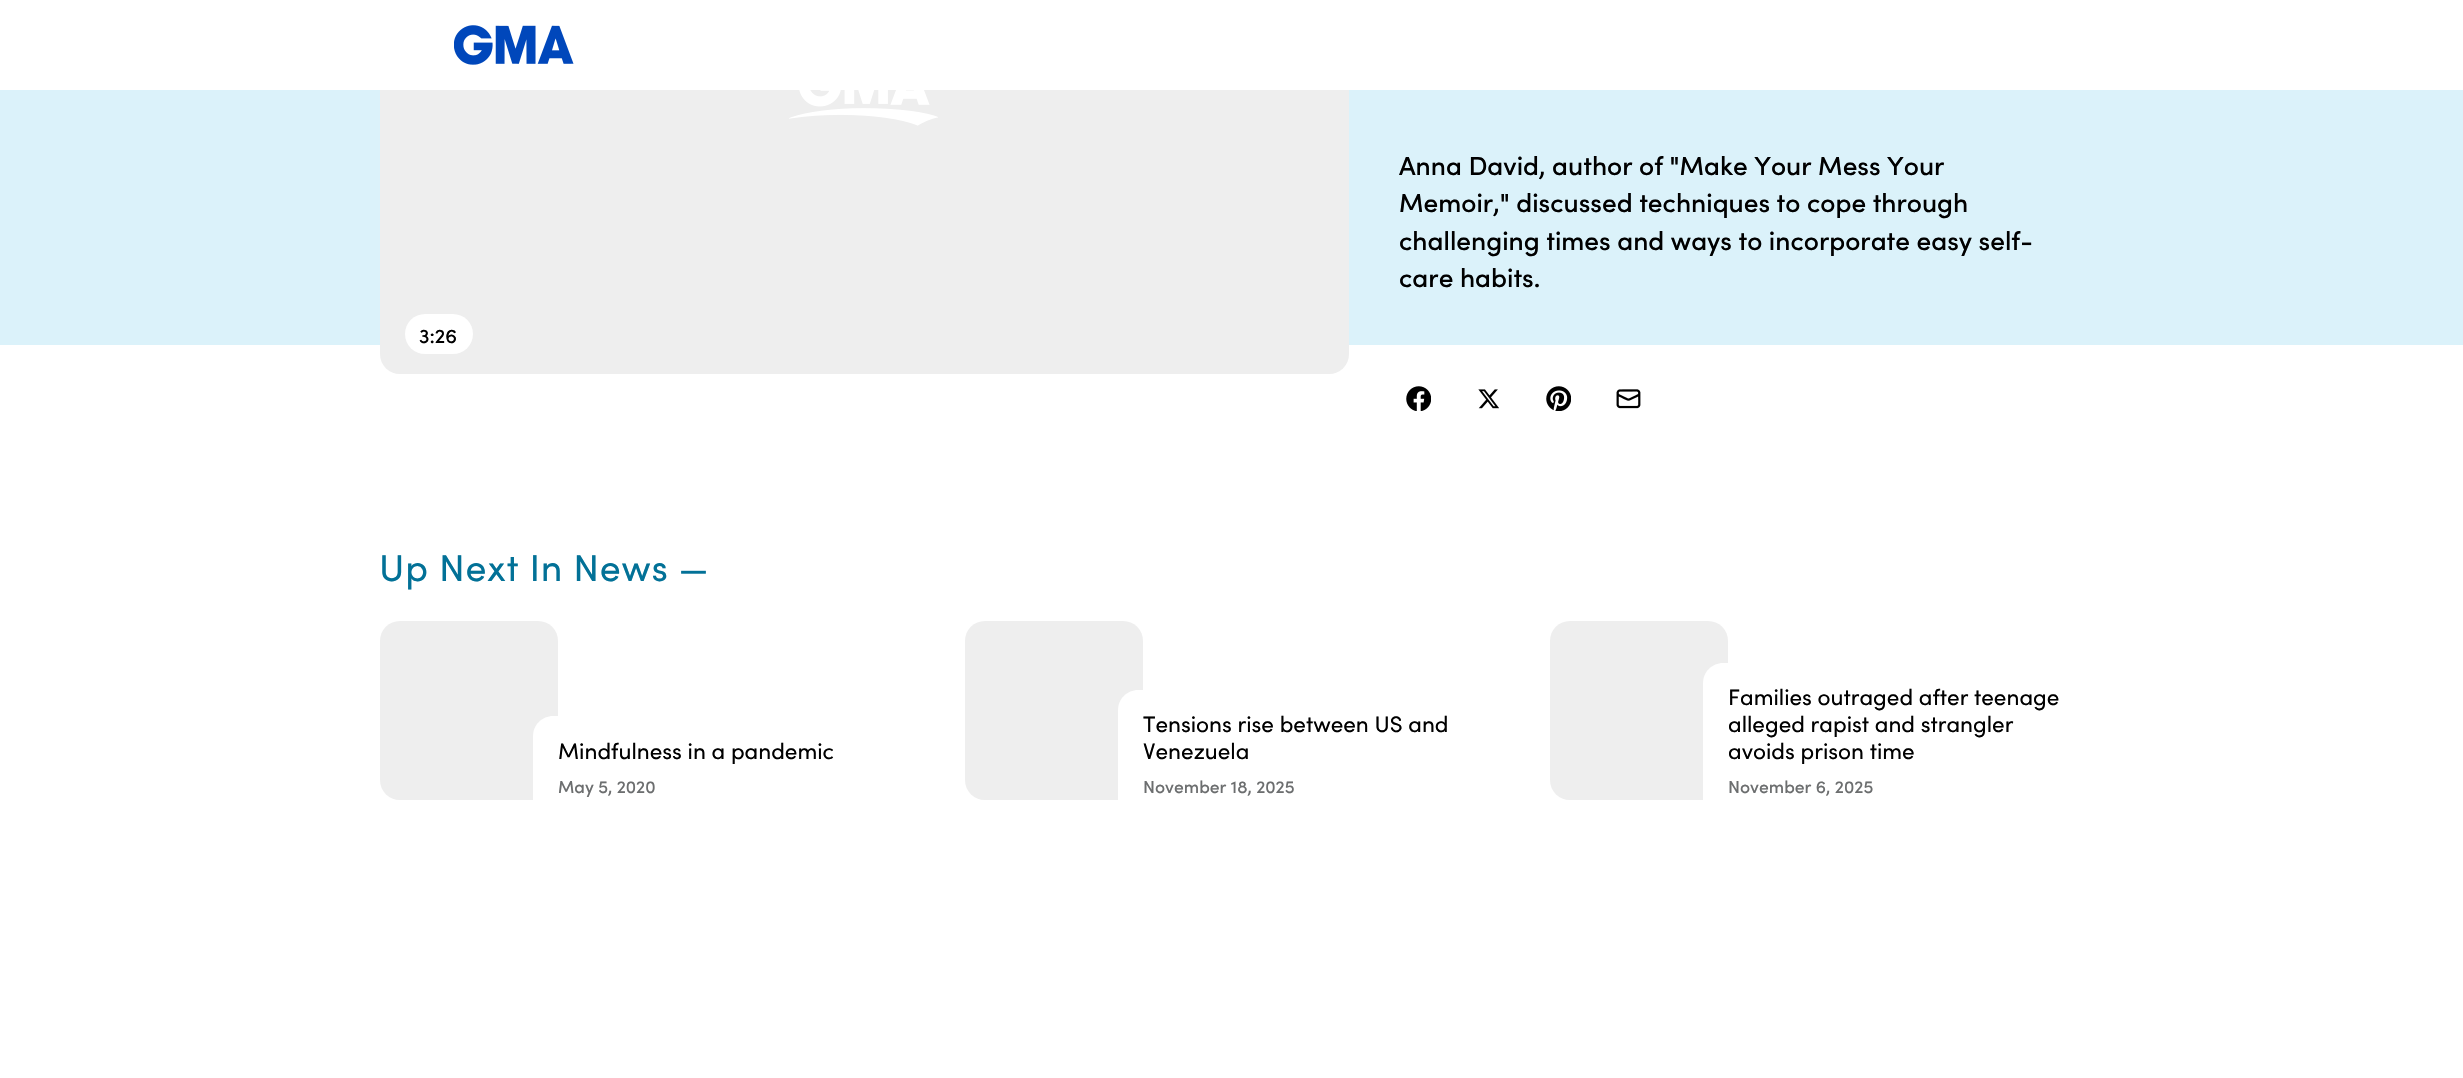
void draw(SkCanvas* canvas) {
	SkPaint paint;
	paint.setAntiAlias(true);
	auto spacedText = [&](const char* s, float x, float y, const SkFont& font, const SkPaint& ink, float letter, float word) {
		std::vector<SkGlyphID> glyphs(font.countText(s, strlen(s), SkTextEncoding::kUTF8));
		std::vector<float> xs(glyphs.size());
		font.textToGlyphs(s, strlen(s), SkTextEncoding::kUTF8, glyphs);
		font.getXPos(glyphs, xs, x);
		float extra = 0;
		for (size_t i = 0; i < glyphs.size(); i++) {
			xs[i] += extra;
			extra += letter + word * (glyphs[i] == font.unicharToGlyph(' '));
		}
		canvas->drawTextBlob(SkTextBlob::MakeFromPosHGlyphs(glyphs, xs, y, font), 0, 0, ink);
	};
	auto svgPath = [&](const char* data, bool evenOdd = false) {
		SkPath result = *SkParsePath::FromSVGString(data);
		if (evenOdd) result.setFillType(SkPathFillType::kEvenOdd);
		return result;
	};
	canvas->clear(0xffffffff);
	paint.setColor(0xffdbf2fa);
	canvas->drawRect(SkRect::MakeXYWH(0, 90, 2463, 255), paint);
	paint.setColor(0xffeeeeee);
	canvas->drawRoundRect(SkRect::MakeXYWH(380, -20, 969, 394), 20, 20, paint);
	paint.setColor(0xffffffff);
	canvas->drawRect(SkRect::MakeXYWH(380, 0, 969, 90), paint);
	canvas->drawImageRect(SkImages::DeferredFromEncodedData(SkData::MakeFromFileName("img1.png")), SkRect::MakeXYWH(454, 25, 120, 40), SkSamplingOptions());
	SkFont f1(fontMgr->matchFamilyStyle("Sofia", SkFontStyle(500, SkFontStyle::kNormal_Width, SkFontStyle::kUpright_Slant)), 26.25);
	f1.setSubpixel(true);
	paint.setColor(0xff000000);
	canvas->drawString("Anna David, author of \"Make Your Mess Your", 1399, 175, f1, paint);
	canvas->drawString("Memoir,\" discussed techniques to cope through", 1399, 212, f1, paint);
	canvas->drawString("challenging times and ways to incorporate easy self-", 1399, 250, f1, paint);
	canvas->drawString("care habits.", 1399, 287, f1, paint);
	canvas->drawImageRect(SkImages::DeferredFromEncodedData(SkData::MakeFromFileName("img2.png")), SkRect::MakeXYWH(789, 90, 149, 36), SkSamplingOptions());
	paint.setColor(0xffffffff);
	canvas->drawRoundRect(SkRect::MakeXYWH(405, 314, 68, 40), 20, 20, paint);
	SkFont f2(fontMgr->matchFamilyStyle("Sofia", SkFontStyle(500, SkFontStyle::kNormal_Width, SkFontStyle::kUpright_Slant)), 20);
	f2.setSubpixel(true);
	paint.setColor(0xff000000);
	canvas->drawString("3:26", 419, 343, f2, paint);
	canvas->drawImageRect(SkImages::DeferredFromEncodedData(SkData::MakeFromFileName("img3.png")), SkRect::MakeXYWH(1406, 386, 25, 25), SkSamplingOptions());
	canvas->drawImageRect(SkImages::DeferredFromEncodedData(SkData::MakeFromFileName("img4.png")), SkRect::MakeXYWH(1478, 389, 21, 20), SkSamplingOptions());
	canvas->drawImageRect(SkImages::DeferredFromEncodedData(SkData::MakeFromFileName("img5.png")), SkRect::MakeXYWH(1546, 386, 25, 25), SkSamplingOptions());
	canvas->drawImageRect(SkImages::DeferredFromEncodedData(SkData::MakeFromFileName("img6.png")), SkRect::MakeXYWH(1616, 389, 25, 20), SkSamplingOptions());
	SkFont f3(fontMgr->matchFamilyStyle("Sofia", SkFontStyle::Normal()), 37.5);
	f3.setSubpixel(true);
	paint.setColor(0xff027197);
	spacedText("Up Next In News —", 379, 581, f3, paint, 0.75, 0);
	paint.setColor(0xffeeeeee);
	canvas->drawRoundRect(SkRect::MakeXYWH(380, 621, 178, 179), 20, 20, paint);
	paint.setColor(0xffffffff);
	canvas->drawPath(svgPath("M553 716H869C880 716 889 725 889 736V800H533V736C533 725 542 716 553 716Z"), paint);
	SkFont f4(fontMgr->matchFamilyStyle("Sofia", SkFontStyle::Normal()), 22.5);
	f4.setSubpixel(true);
	paint.setColor(0xff000000);
	canvas->drawString("Mindfulness in a pandemic", 558, 759, f4, paint);
	SkFont f5(fontMgr->matchFamilyStyle("Sofia", SkFontStyle(500, SkFontStyle::kNormal_Width, SkFontStyle::kUpright_Slant)), 17.5);
	f5.setSubpixel(true);
	paint.setColor(0xff6c6e6f);
	canvas->drawString("May 5, 2020", 558, 793, f5, paint);
	paint.setColor(0xffeeeeee);
	canvas->drawRoundRect(SkRect::MakeXYWH(965, 621, 178, 179), 20, 20, paint);
	paint.setColor(0xffffffff);
	canvas->drawPath(svgPath("M1138 690H1454C1465 690 1474 699 1474 710V800H1118V710C1118 699 1127 690 1138 690Z"), paint);
	paint.setColor(0xff000000);
	canvas->drawString("Tensions rise between US and", 1143, 732, f4, paint);
	canvas->drawString("Venezuela", 1143, 759, f4, paint);
	paint.setColor(0xff6c6e6f);
	canvas->drawString("November 18, 2025", 1143, 793, f5, paint);
	paint.setColor(0xffeeeeee);
	canvas->drawRoundRect(SkRect::MakeXYWH(1550, 621, 178, 179), 20, 20, paint);
	paint.setColor(0xffffffff);
	canvas->drawPath(svgPath("M1723 663H2039C2050 663 2059 672 2059 683V800H1703V683C1703 672 1712 663 1723 663Z"), paint);
	paint.setColor(0xff000000);
	canvas->drawString("Families outraged after teenage", 1728, 705, f4, paint);
	canvas->drawString("alleged rapist and strangler", 1728, 732, f4, paint);
	canvas->drawString("avoids prison time", 1728, 759, f4, paint);
	paint.setColor(0xff6c6e6f);
	canvas->drawString("November 6, 2025", 1728, 793, f5, paint);
}
